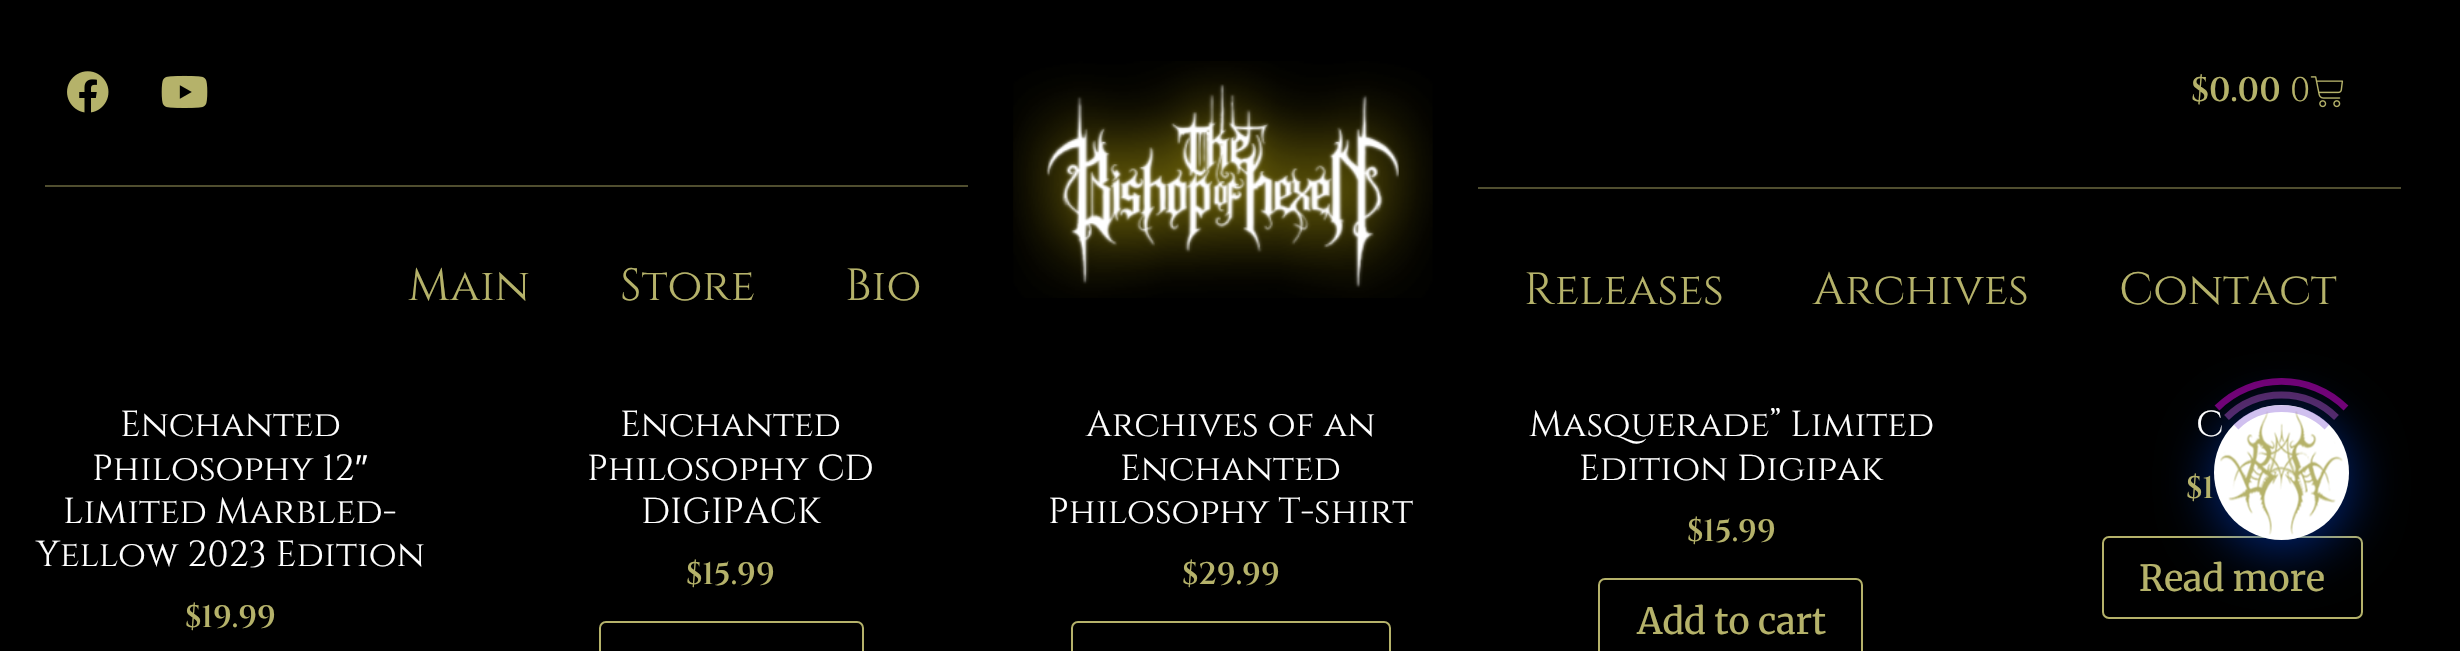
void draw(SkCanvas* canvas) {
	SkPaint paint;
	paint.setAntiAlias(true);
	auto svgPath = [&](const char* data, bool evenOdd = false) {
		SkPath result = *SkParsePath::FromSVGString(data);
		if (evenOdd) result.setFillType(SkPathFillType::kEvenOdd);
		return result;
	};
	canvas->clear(0xff000000);
	canvas->drawImageRect(SkImages::DeferredFromEncodedData(SkData::MakeFromFileName("img1.png")), SkRect::MakeXYWH(67, 71, 42, 42), SkSamplingOptions());
	canvas->drawImageRect(SkImages::DeferredFromEncodedData(SkData::MakeFromFileName("img2.png")), SkRect::MakeXYWH(161, 75, 47, 33), SkSamplingOptions());
	paint.setColor(0xff504e2f);
	canvas->drawRect(SkRect::MakeXYWH(45, 185, 923, 2), paint);
	SkFont f1(fontMgr->matchFamilyStyle("Cinzel", SkFontStyle::Normal()), 45);
	f1.setSubpixel(true);
	paint.setColor(0xffb5b26a);
	canvas->drawString("Main", 408, 300, f1, paint);
	canvas->drawString("Store", 620, 300, f1, paint);
	canvas->drawString("Bio", 845, 300, f1, paint);
	canvas->drawImageRect(SkImages::DeferredFromEncodedData(SkData::MakeFromFileName("img3.png")), SkRect::MakeXYWH(1013, 61, 420, 237), SkSamplingOptions());
	SkFont f2(fontMgr->matchFamilyStyle("Cinzel", SkFontStyle(600, SkFontStyle::kNormal_Width, SkFontStyle::kUpright_Slant)), 34);
	f2.setSubpixel(true);
	canvas->drawString("$0.00", 2191, 101, f2, paint);
	SkFont f3(fontMgr->matchFamilyStyle("Cinzel", SkFontStyle::Normal()), 34);
	f3.setSubpixel(true);
	canvas->drawString("0", 2290, 101, f3, paint);
	canvas->drawImageRect(SkImages::DeferredFromEncodedData(SkData::MakeFromFileName("img4.png")), SkRect::MakeXYWH(2310, 76, 34, 32), SkSamplingOptions());
	paint.setColor(0xff504e2f);
	canvas->drawRect(SkRect::MakeXYWH(1478, 187, 923, 2), paint);
	paint.setColor(0xffb5b26a);
	canvas->drawString("Releases", 1524, 304, f1, paint);
	canvas->drawString("Archives", 1813, 304, f1, paint);
	canvas->drawString("Contact", 2119, 304, f1, paint);
	paint.setStroke(true);
	paint.setStrokeWidth(2);
	canvas->drawRoundRect(SkRect::MakeXYWH(2103, 537, 259, 81), 6, 6, paint);
	paint.setStroke(false);
	paint.setColor(0x80004dff);
	paint.setMaskFilter(SkMaskFilter::MakeBlur(kNormal_SkBlurStyle, 27));
	canvas->drawRoundRect(SkRect::MakeXYWH(2214, 414, 135, 135), 67.5, 67.5, paint);
	paint.setMaskFilter(nullptr);
	paint.setColor(0xffffffff);
	canvas->drawCircle(2281.5, 472.5, 67.5, paint);
	SkFont f4(fontMgr->matchFamilyStyle("Cinzel", SkFontStyle::Normal()), 36);
	f4.setSubpixel(true);
	canvas->drawString("C", 2196, 436, f4, paint);
	canvas->drawImageRect(SkImages::DeferredFromEncodedData(SkData::MakeFromFileName("img5.png")), SkRect::MakeXYWH(2220, 411, 123, 124), SkSamplingOptions());
	paint.setStroke(true);
	paint.setStrokeWidth(6.8);
	paint.setColor(0x709370db);
	canvas->drawPath(svgPath("M2236 427C2261 402.5 2302 402.5 2327 427"), paint);
	paint.setColor(0x70ba55d3);
	canvas->drawPath(svgPath("M2226.5 417.5C2257 387.5 2306 387.5 2336.5 417.5"), paint);
	paint.setColor(0x70ff00ff);
	canvas->drawPath(svgPath("M2217 408C2252.5 372.5 2310.5 372.5 2346 408"), paint);
	paint.setStroke(false);
	paint.setColor(0xffffffff);
	canvas->drawString("Enchanted", 120, 436, f4, paint);
	canvas->drawString("Philosophy 12", 92, 480, f4, paint);
	SkFont f5(fontMgr->matchFamilyStyle("Liberation Sans", SkFontStyle::Normal()), 36);
	f5.setSubpixel(true);
	canvas->drawString("″", 355, 480, f5, paint);
	canvas->drawString("Limited Marbled-", 63, 523, f4, paint);
	canvas->drawString("Yellow 2023 Edition", 36, 566, f4, paint);
	SkFont f6(fontMgr->matchFamilyStyle("Cinzel", SkFontStyle(600, SkFontStyle::kNormal_Width, SkFontStyle::kUpright_Slant)), 31);
	f6.setSubpixel(true);
	paint.setColor(0xffb5b26a);
	canvas->drawString("$19.99", 185, 627, f6, paint);
	paint.setColor(0xffffffff);
	canvas->drawString("Enchanted", 620, 436, f4, paint);
	canvas->drawString("Philosophy CD", 587, 480, f4, paint);
	canvas->drawString("DIGIPACK", 641, 523, f4, paint);
	paint.setColor(0xffb5b26a);
	canvas->drawString("$15.99", 686, 584, f6, paint);
	paint.setStroke(true);
	paint.setStrokeWidth(2);
	canvas->drawRoundRect(SkRect::MakeXYWH(600, 622, 263, 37), 6, 6, paint);
	paint.setStroke(false);
	paint.setColor(0xffffffff);
	canvas->drawString("Archives of an", 1086, 436, f4, paint);
	canvas->drawString("Enchanted", 1120, 480, f4, paint);
	canvas->drawString("Philosophy T-shirt", 1048, 523, f4, paint);
	paint.setColor(0xffb5b26a);
	canvas->drawString("$29.99", 1182, 584, f6, paint);
	paint.setStroke(true);
	canvas->drawRoundRect(SkRect::MakeXYWH(1072, 622, 318, 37), 6, 6, paint);
	paint.setStroke(false);
	paint.setColor(0xffffffff);
	canvas->drawString("Masquerade” Limited", 1529, 436, f4, paint);
	canvas->drawString("Edition Digipak", 1579, 480, f4, paint);
	paint.setColor(0xffb5b26a);
	canvas->drawString("$15.99", 1687, 541, f6, paint);
	paint.setStroke(true);
	canvas->drawRoundRect(SkRect::MakeXYWH(1599, 579, 263, 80), 6, 6, paint);
	SkFont f7(fontMgr->matchFamilyStyle("Merriweather", SkFontStyle(500, SkFontStyle::kNormal_Width, SkFontStyle::kUpright_Slant)), 36);
	f7.setSubpixel(true);
	paint.setStroke(false);
	canvas->drawString("Add to cart", 1637, 634, f7, paint);
	canvas->drawString("$1", 2186, 498, f6, paint);
	canvas->drawString("Read more", 2139, 591, f7, paint);
}
